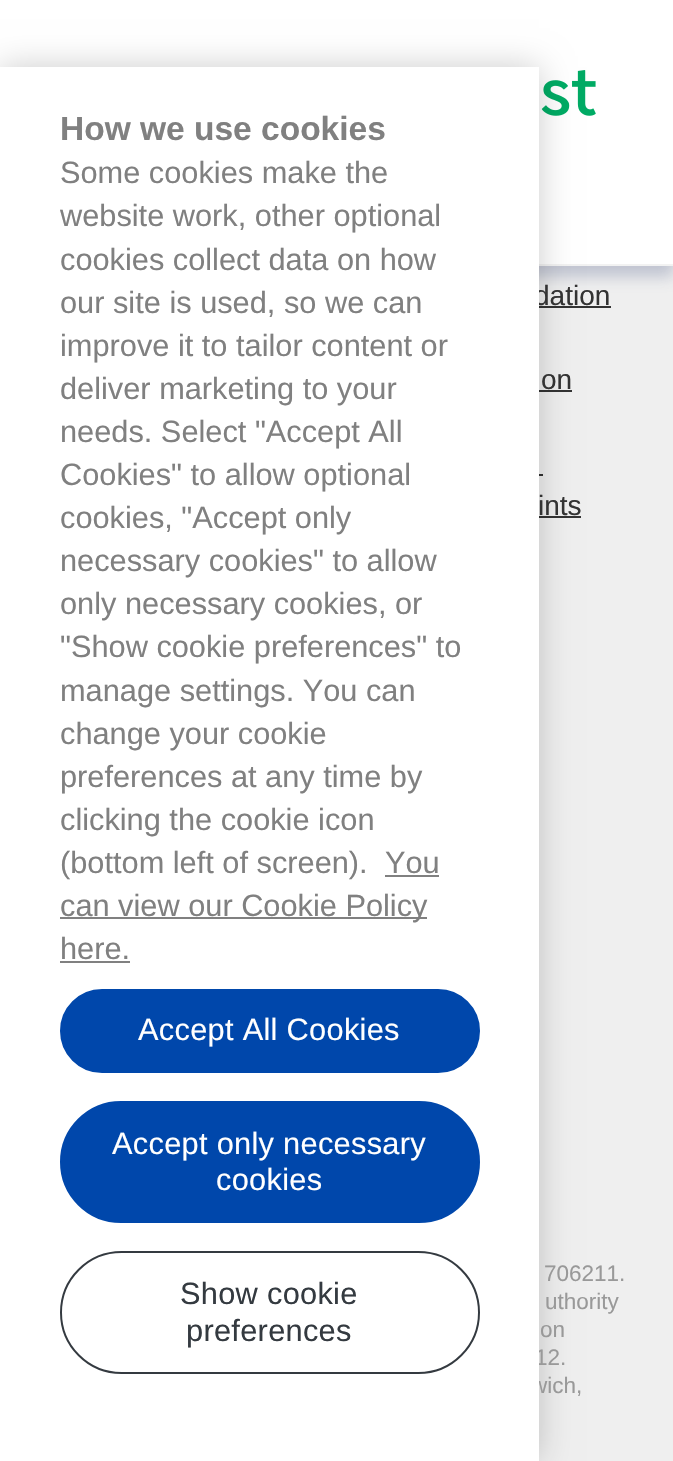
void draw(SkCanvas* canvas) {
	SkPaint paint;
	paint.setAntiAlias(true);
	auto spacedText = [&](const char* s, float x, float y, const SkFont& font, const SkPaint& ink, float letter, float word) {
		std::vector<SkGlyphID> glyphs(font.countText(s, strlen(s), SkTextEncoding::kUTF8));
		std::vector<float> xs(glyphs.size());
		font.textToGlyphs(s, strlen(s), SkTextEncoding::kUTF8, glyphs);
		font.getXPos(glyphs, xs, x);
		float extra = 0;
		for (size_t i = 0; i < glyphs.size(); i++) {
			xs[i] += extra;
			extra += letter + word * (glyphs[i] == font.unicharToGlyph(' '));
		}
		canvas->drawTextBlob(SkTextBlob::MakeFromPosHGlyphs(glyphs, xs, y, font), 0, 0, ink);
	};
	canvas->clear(0xffefefef);
	paint.setColor(0x5e6e7b9d);
	paint.setMaskFilter(SkMaskFilter::MakeBlur(kNormal_SkBlurStyle, 7));
	canvas->drawRect(SkRect::MakeXYWH(0, 11, 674, 266), paint);
	paint.setMaskFilter(nullptr);
	paint.setColor(0xffffffff);
	canvas->drawRect(SkRect::MakeXYWH(0, 0, 673, 264), paint);
	paint.setColor(0xfff2f2f2);
	canvas->drawRect(SkRect::MakeXYWH(539, 264, 134, 2), paint);
	canvas->drawImageRect(SkImages::DeferredFromEncodedData(SkData::MakeFromFileName("img1.png")), SkRect::MakeXYWH(541, 70, 55, 46), SkSamplingOptions());
	paint.setColor(0xff333333);
	canvas->drawRect(SkRect::MakeXYWH(539, 306, 72, 2), paint);
	canvas->drawRect(SkRect::MakeXYWH(539, 390, 33, 2), paint);
	canvas->drawRect(SkRect::MakeXYWH(539, 474, 4, 2), paint);
	canvas->drawRect(SkRect::MakeXYWH(539, 516, 42, 2), paint);
	paint.setColor(0x33000000);
	paint.setMaskFilter(SkMaskFilter::MakeBlur(kNormal_SkBlurStyle, 16));
	canvas->drawRect(SkRect::MakeXYWH(0, 67, 539, 1394), paint);
	paint.setMaskFilter(nullptr);
	SkFont f1(fontMgr->matchFamilyStyle("Liberation Sans", SkFontStyle::Normal()), 28);
	f1.setSubpixel(true);
	paint.setColor(0xff333333);
	canvas->drawString("dation", 534, 305, f1, paint);
	SkFont f2(fontMgr->matchFamilyStyle("Liberation Sans", SkFontStyle::Normal()), 22.5);
	f2.setSubpixel(true);
	paint.setColor(0xff999999);
	canvas->drawString("12.", 535, 1365, f2, paint);
	canvas->drawString("wich,", 531, 1393, f2, paint);
	paint.setColor(0xffffffff);
	canvas->drawRect(SkRect::MakeXYWH(0, 67, 539, 1394), paint);
	SkFont f3(fontMgr->matchFamilyStyle("Liberation Sans", SkFontStyle::Bold()), 33.5);
	f3.setSubpixel(true);
	paint.setColor(0xff808080);
	canvas->drawString("How we use cookies", 60, 140, f3, paint);
	SkFont f4(fontMgr->matchFamilyStyle("Liberation Sans", SkFontStyle::Normal()), 30.75);
	f4.setSubpixel(true);
	canvas->drawString("Some cookies make the", 60, 183, f4, paint);
	canvas->save();
	canvas->clipRect(SkRect::MakeXYWH(60, 109, 420, 862));
	canvas->drawString("website work, other optional", 60, 226, f4, paint);
	canvas->restore();
	canvas->drawString("cookies collect data on how", 60, 270, f4, paint);
	canvas->drawString("our site is used, so we can", 60, 313, f4, paint);
	canvas->drawString("improve it to tailor content or", 60, 356, f4, paint);
	canvas->drawString("deliver marketing to your", 60, 399, f4, paint);
	canvas->drawString("needs. Select \"Accept All", 60, 442, f4, paint);
	canvas->drawString("Cookies\" to allow optional", 60, 485, f4, paint);
	canvas->drawString("cookies, \"Accept only", 60, 528, f4, paint);
	canvas->drawString("necessary cookies\" to allow", 60, 571, f4, paint);
	canvas->drawString("only necessary cookies, or", 60, 614, f4, paint);
	canvas->drawString("\"Show cookie preferences\" to", 60, 657, f4, paint);
	canvas->drawString("manage settings. You can", 60, 701, f4, paint);
	canvas->drawString("change your cookie", 60, 744, f4, paint);
	canvas->drawString("preferences at any time by", 60, 787, f4, paint);
	canvas->drawString("clicking the cookie icon", 60, 830, f4, paint);
	canvas->drawString("(bottom left of screen).", 60, 873, f4, paint);
	canvas->drawString("You", 385, 873, f4, paint);
	canvas->drawRect(SkRect::MakeXYWH(385, 875, 54, 2), paint);
	canvas->drawRect(SkRect::MakeXYWH(60, 917, 367, 2), paint);
	canvas->drawString("can view our Cookie Policy", 60, 916, f4, paint);
	canvas->drawString("here.", 60, 959, f4, paint);
	canvas->drawRect(SkRect::MakeXYWH(60, 961, 70, 2), paint);
	paint.setColor(0xff0047ab);
	canvas->drawRoundRect(SkRect::MakeXYWH(61, 990, 418, 82), 41, 41, paint);
	paint.setStroke(true);
	paint.setStrokeWidth(2);
	canvas->drawRoundRect(SkRect::MakeXYWH(61, 990, 418, 82), 41, 41, paint);
	paint.setStroke(false);
	paint.setColor(0xffffffff);
	spacedText("Accept All Cookies", 138, 1040, f4, paint, 0.3, 0);
	paint.setColor(0xff0047ab);
	canvas->drawRoundRect(SkRect::MakeXYWH(61, 1102, 418, 120), 60, 60, paint);
	paint.setStroke(true);
	canvas->drawRoundRect(SkRect::MakeXYWH(61, 1102, 418, 120), 60, 60, paint);
	paint.setStroke(false);
	paint.setColor(0xffffffff);
	spacedText("Accept only necessary", 112, 1154, f4, paint, 0.3, 0);
	spacedText("cookies", 216, 1190, f4, paint, 0.3, 0);
	paint.setStroke(true);
	paint.setColor(0xff343a40);
	canvas->drawRoundRect(SkRect::MakeXYWH(61, 1252, 418, 121), 60.5, 60.5, paint);
	paint.setStroke(false);
	spacedText("Show cookie", 180, 1304, f4, paint, 0.3, 0);
	spacedText("preferences", 186, 1341, f4, paint, 0.3, 0);
	paint.setColor(0xff333333);
	canvas->drawString("on", 541, 389, f1, paint);
	canvas->drawString("ints", 538, 515, f1, paint);
	paint.setColor(0xff999999);
	canvas->drawString("706211.", 544, 1281, f2, paint);
	canvas->drawString("uthority", 545, 1309, f2, paint);
	canvas->drawString("on", 540, 1337, f2, paint);
}
